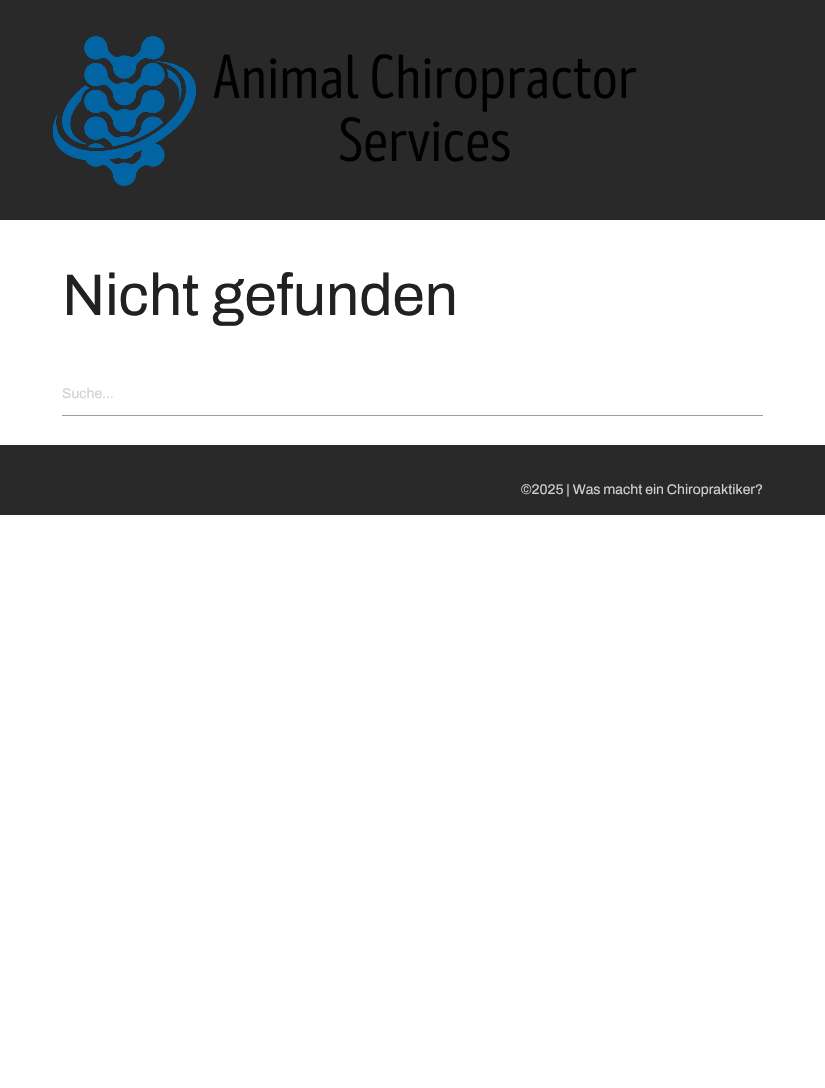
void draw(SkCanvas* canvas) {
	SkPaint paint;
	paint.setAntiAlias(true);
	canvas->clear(0xffffffff);
	paint.setColor(0xff292929);
	canvas->drawRect(SkRect::MakeXYWH(0, 0, 825, 220), paint);
	canvas->drawImageRect(SkImages::DeferredFromEncodedData(SkData::MakeFromFileName("img1.png")), SkRect::MakeXYWH(52, 36, 585, 150), SkSamplingOptions());
	SkFont f1(fontMgr->matchFamilyStyle("Archivo", SkFontStyle(600, SkFontStyle::kNormal_Width, SkFontStyle::kUpright_Slant)), 58.75);
	f1.setSubpixel(true);
	paint.setColor(0xff212121);
	canvas->drawString("Nicht gefunden", 62, 315, f1, paint);
	paint.setColor(0xff9e9e9e);
	canvas->drawRect(SkRect::MakeXYWH(62, 415, 701, 1), paint);
	SkFont f2(fontMgr->matchFamilyStyle("Archivo", SkFontStyle(600, SkFontStyle::kNormal_Width, SkFontStyle::kUpright_Slant)), 14);
	f2.setSubpixel(true);
	paint.setColor(0xffd1d1d1);
	canvas->drawString("Suche...", 62, 398, f2, paint);
	paint.setColor(0xff292929);
	canvas->drawRect(SkRect::MakeXYWH(0, 445, 825, 70), paint);
	paint.setColor(0xffd1d1d1);
	canvas->drawString("©2025 | Was macht ein Chiropraktiker?", 521, 494, f2, paint);
}
